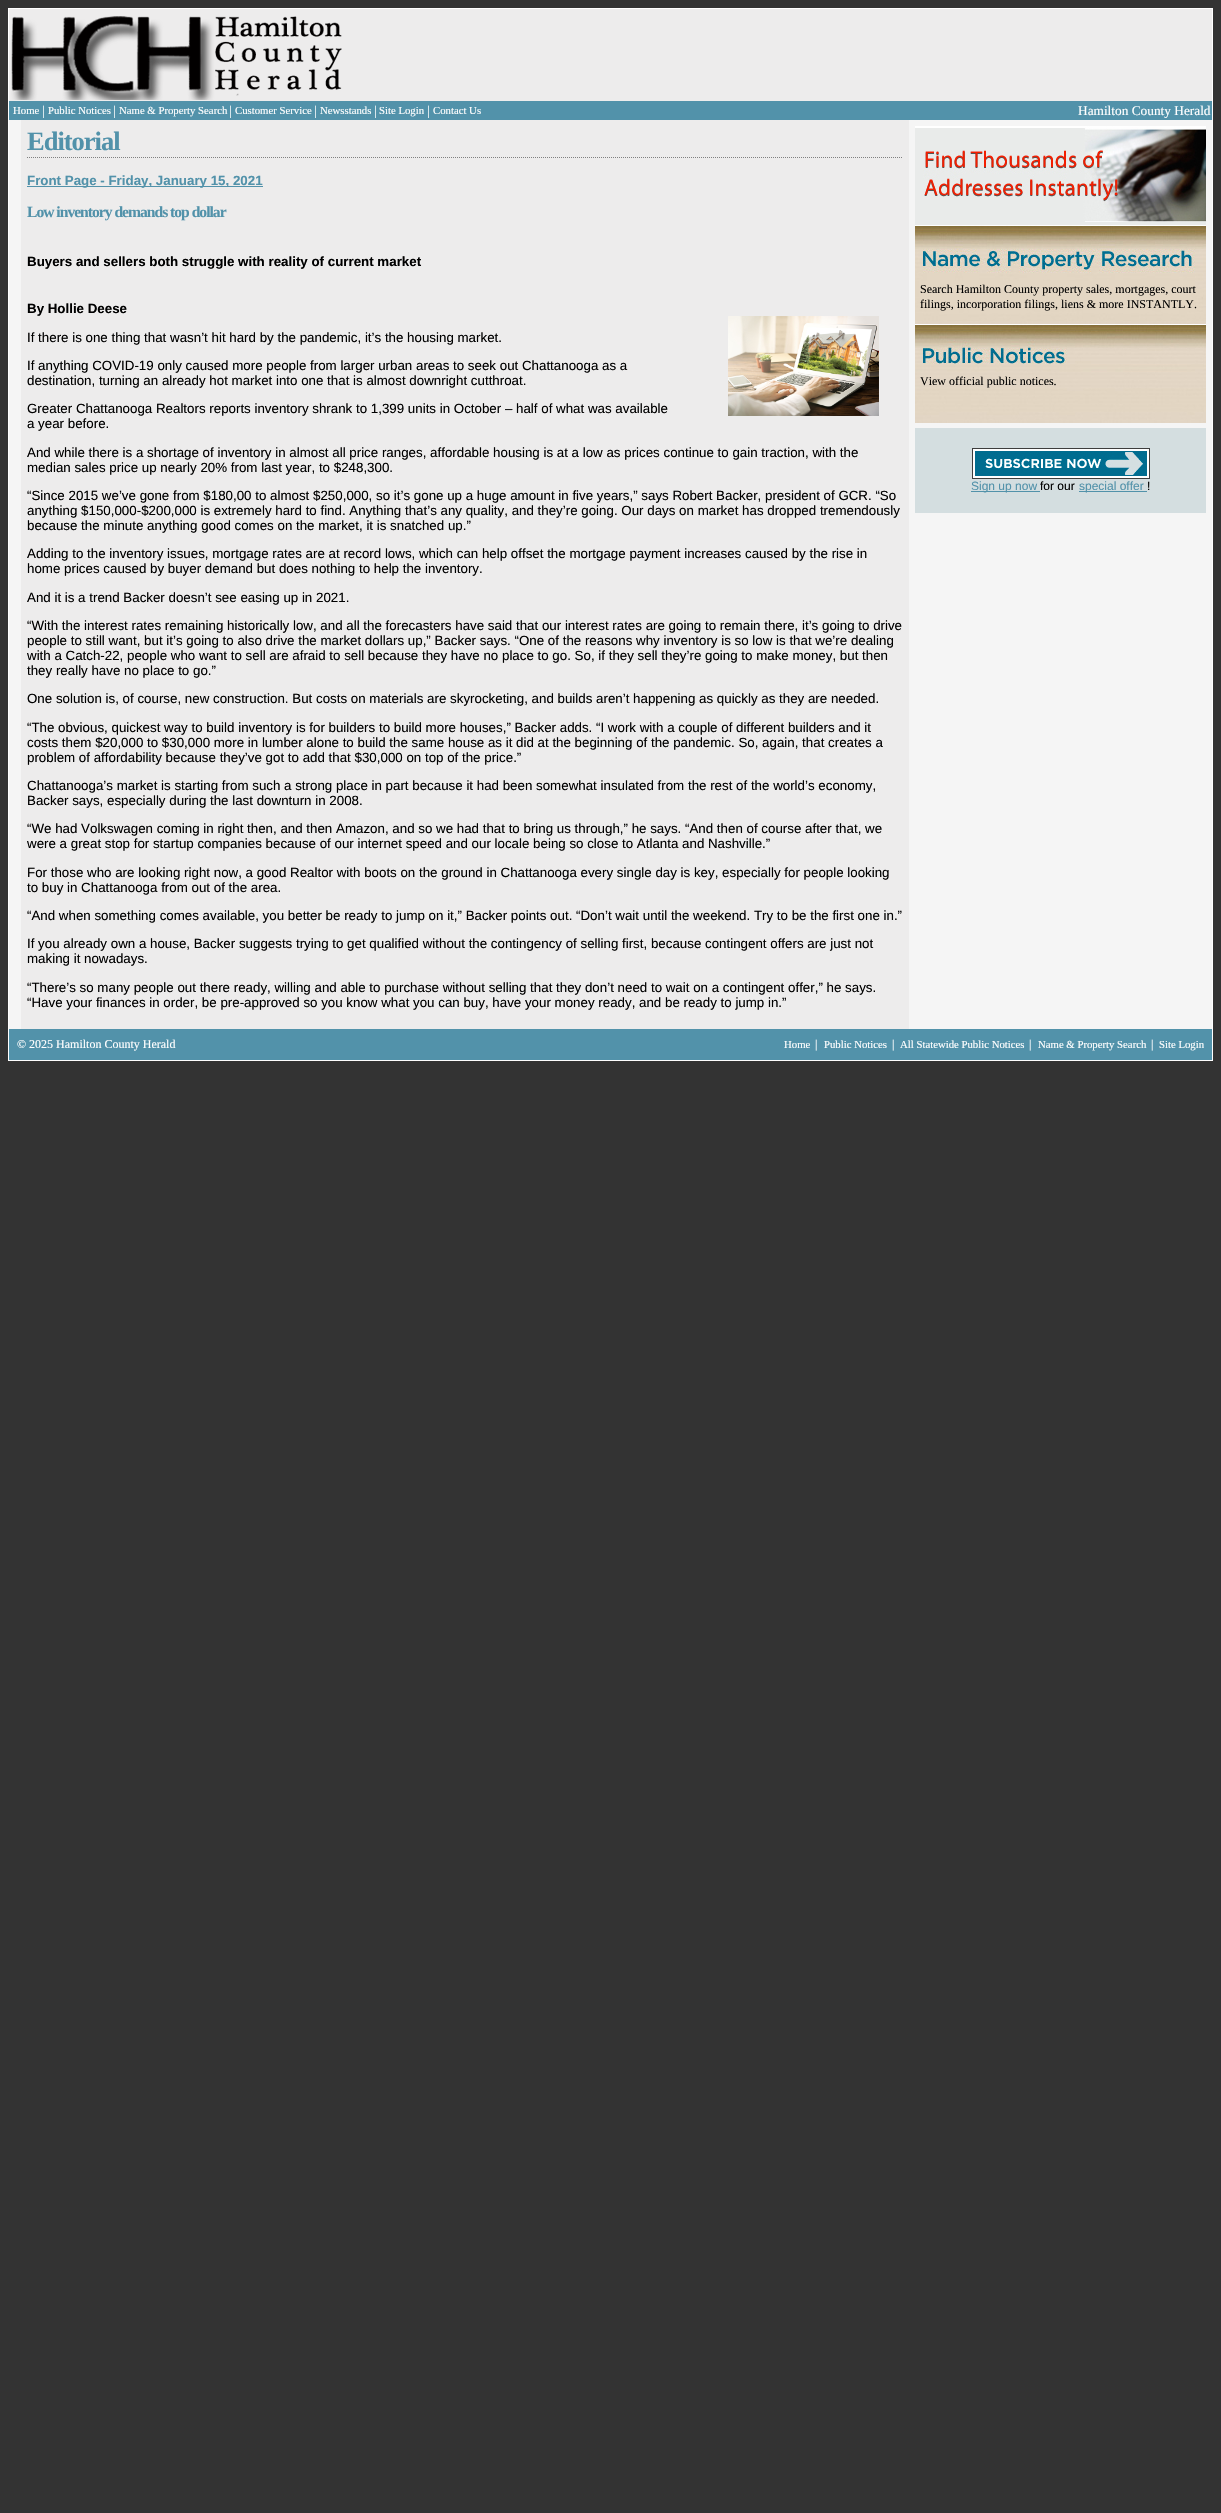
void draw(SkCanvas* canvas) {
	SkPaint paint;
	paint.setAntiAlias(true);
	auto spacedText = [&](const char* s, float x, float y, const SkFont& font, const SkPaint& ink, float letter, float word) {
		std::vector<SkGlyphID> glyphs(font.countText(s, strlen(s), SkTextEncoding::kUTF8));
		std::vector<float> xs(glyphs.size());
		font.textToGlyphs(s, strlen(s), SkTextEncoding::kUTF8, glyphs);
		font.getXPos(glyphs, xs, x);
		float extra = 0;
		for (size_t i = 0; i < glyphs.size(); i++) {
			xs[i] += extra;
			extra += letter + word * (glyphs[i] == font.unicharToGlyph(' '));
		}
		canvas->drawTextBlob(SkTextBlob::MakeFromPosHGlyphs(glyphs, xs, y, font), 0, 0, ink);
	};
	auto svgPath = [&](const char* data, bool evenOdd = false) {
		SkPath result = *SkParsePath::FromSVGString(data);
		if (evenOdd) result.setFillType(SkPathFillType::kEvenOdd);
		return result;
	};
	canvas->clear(0xff333333);
	paint.setColor(0xffedecec);
	canvas->drawRect(SkRect::MakeXYWH(9, 9, 1203, 1020), paint);
	paint.setColor(0xffffffff);
	canvas->drawRect(SkRect::MakeXYWH(8, 8, 1205, 1), paint);
	canvas->drawRect(SkRect::MakeXYWH(1212, 8, 1, 1053), paint);
	canvas->drawRect(SkRect::MakeXYWH(8, 1060, 1205, 1), paint);
	canvas->drawRect(SkRect::MakeXYWH(8, 8, 1, 1053), paint);
	canvas->drawImageRect(SkImages::DeferredFromEncodedData(SkData::MakeFromFileName("img1.png")), SkRect::MakeXYWH(11, 16, 331, 84), SkSamplingOptions());
	paint.setColor(0xff5292aa);
	canvas->drawRect(SkRect::MakeXYWH(9, 101, 1203, 19), paint);
	SkFont f1(fontMgr->matchFamilyStyle("Liberation Serif", SkFontStyle::Normal()), 10.75);
	f1.setSubpixel(true);
	paint.setColor(0xffffffff);
	canvas->drawString("Home", 13, 114, f1, paint);
	SkFont f2(fontMgr->matchFamilyStyle("Liberation Serif", SkFontStyle::Normal()), 13.33);
	f2.setSubpixel(true);
	canvas->drawString("|", 42, 115, f2, paint);
	canvas->drawString("Public Notices", 48, 114, f1, paint);
	canvas->drawString("|", 113, 115, f2, paint);
	canvas->drawString("Name & Property Search", 119, 114, f1, paint);
	canvas->drawString("|", 229, 115, f2, paint);
	canvas->drawString("Customer Service", 235, 114, f1, paint);
	canvas->drawString("|", 314, 115, f2, paint);
	canvas->drawString("Newsstands", 320, 114, f1, paint);
	canvas->drawString("|", 374, 115, f2, paint);
	canvas->drawString("Site Login", 379, 114, f1, paint);
	canvas->drawString("|", 427, 115, f2, paint);
	canvas->drawString("Contact Us", 433, 114, f1, paint);
	canvas->drawString("Hamilton County Herald", 1078, 115, f2, paint);
	paint.setColor(0xfff5f5f5);
	canvas->drawRect(SkRect::MakeXYWH(9, 120, 12, 909), paint);
	paint.setStroke(true);
	paint.setStrokeWidth(1);
	paint.setColor(0xff808080);
	paint.setPathEffect(SkDashPathEffect::Make({{1, 1}}, 0));
	canvas->drawPath(svgPath("M27 157.5H903"), paint);
	paint.setPathEffect(nullptr);
	SkFont f3(fontMgr->matchFamilyStyle("Liberation Serif", SkFontStyle::Bold()), 26.5);
	f3.setSubpixel(true);
	paint.setStroke(false);
	paint.setColor(0xff5292aa);
	spacedText("Editorial", 27, 150, f3, paint, -1, 0);
	canvas->drawRect(SkRect::MakeXYWH(27, 186, 236, 1), paint);
	SkFont f4(fontMgr->matchFamilyStyle("Liberation Sans", SkFontStyle::Bold()), 13.33);
	f4.setSubpixel(true);
	canvas->drawString("Front Page - Friday, January 15, 2021", 27, 185, f4, paint);
	SkFont f5(fontMgr->matchFamilyStyle("Liberation Serif", SkFontStyle::Bold()), 15.6);
	f5.setSubpixel(true);
	spacedText("Low inventory demands top dollar", 27, 217, f5, paint, -1, 0);
	paint.setColor(0xff000000);
	canvas->drawString("Buyers and sellers both struggle with reality of current market", 27, 266, f4, paint);
	canvas->drawString("By Hollie Deese", 27, 313, f4, paint);
	canvas->drawImageRect(SkImages::DeferredFromEncodedData(SkData::MakeFromFileName("img2.png")), SkRect::MakeXYWH(728, 316, 151, 100), SkSamplingOptions());
	SkFont f6(fontMgr->matchFamilyStyle("Liberation Sans", SkFontStyle::Normal()), 13.33);
	f6.setSubpixel(true);
	canvas->drawString("If there is one thing that wasn’t hit hard by the pandemic, it’s the housing market.", 27, 342, f6, paint);
	canvas->drawString("If anything COVID-19 only caused more people from larger urban areas to seek out Chattanooga as a", 27, 370, f6, paint);
	canvas->drawString("destination, turning an already hot market into one that is almost downright cutthroat.", 27, 385, f6, paint);
	canvas->drawString("Greater Chattanooga Realtors reports inventory shrank to 1,399 units in October – half of what was available", 27, 413, f6, paint);
	canvas->drawString("a year before.", 27, 428, f6, paint);
	canvas->drawString("And while there is a shortage of inventory in almost all price ranges, affordable housing is at a low as prices continue to gain traction, with the", 27, 457, f6, paint);
	canvas->drawString("median sales price up nearly 20% from last year, to $248,300.", 27, 472, f6, paint);
	canvas->drawString("“Since 2015 we’ve gone from $180,00 to almost $250,000, so it’s gone up a huge amount in five years,” says Robert Backer, president of GCR. “So", 27, 500, f6, paint);
	canvas->drawString("anything $150,000-$200,000 is extremely hard to find. Anything that’s any quality, and they’re going. Our days on market has dropped tremendously", 27, 515, f6, paint);
	canvas->drawString("because the minute anything good comes on the market, it is snatched up.”", 27, 530, f6, paint);
	canvas->drawString("Adding to the inventory issues, mortgage rates are at record lows, which can help offset the mortgage payment increases caused by the rise in", 27, 558, f6, paint);
	canvas->drawString("home prices caused by buyer demand but does nothing to help the inventory.", 27, 573, f6, paint);
	canvas->drawString("And it is a trend Backer doesn’t see easing up in 2021.", 27, 602, f6, paint);
	canvas->drawString("“With the interest rates remaining historically low, and all the forecasters have said that our interest rates are going to remain there, it’s going to drive", 27, 630, f6, paint);
	canvas->drawString("people to still want, but it’s going to also drive the market dollars up,” Backer says. “One of the reasons why inventory is so low is that we’re dealing", 27, 645, f6, paint);
	canvas->drawString("with a Catch-22, people who want to sell are afraid to sell because they have no place to go. So, if they sell they’re going to make money, but then", 27, 660, f6, paint);
	canvas->drawString("they really have no place to go.”", 27, 675, f6, paint);
	canvas->drawString("One solution is, of course, new construction. But costs on materials are skyrocketing, and builds aren’t happening as quickly as they are needed.", 27, 703, f6, paint);
	canvas->drawString("“The obvious, quickest way to build inventory is for builders to build more houses,” Backer adds. “I work with a couple of different builders and it", 27, 732, f6, paint);
	canvas->drawString("costs them $20,000 to $30,000 more in lumber alone to build the same house as it did at the beginning of the pandemic. So, again, that creates a", 27, 747, f6, paint);
	canvas->drawString("problem of affordability because they’ve got to add that $30,000 on top of the price.”", 27, 762, f6, paint);
	canvas->drawString("Chattanooga’s market is starting from such a strong place in part because it had been somewhat insulated from the rest of the world’s economy,", 27, 790, f6, paint);
	canvas->drawString("Backer says, especially during the last downturn in 2008.", 27, 805, f6, paint);
	canvas->drawString("“We had Volkswagen coming in right then, and then Amazon, and so we had that to bring us through,” he says. “And then of course after that, we", 27, 833, f6, paint);
	canvas->drawString("were a great stop for startup companies because of our internet speed and our locale being so close to Atlanta and Nashville.”", 27, 848, f6, paint);
	canvas->drawString("For those who are looking right now, a good Realtor with boots on the ground in Chattanooga every single day is key, especially for people looking", 27, 877, f6, paint);
	canvas->drawString("to buy in Chattanooga from out of the area.", 27, 892, f6, paint);
	canvas->drawString("“And when something comes available, you better be ready to jump on it,” Backer points out. “Don’t wait until the weekend. Try to be the first one in.”", 27, 920, f6, paint);
	canvas->drawString("If you already own a house, Backer suggests trying to get qualified without the contingency of selling first, because contingent offers are just not", 27, 948, f6, paint);
	canvas->drawString("making it nowadays.", 27, 963, f6, paint);
	canvas->drawString("“There’s so many people out there ready, willing and able to purchase without selling that they don’t need to wait on a contingent offer,” he says.", 27, 992, f6, paint);
	canvas->drawString("“Have your finances in order, be pre-approved so you know what you can buy, have your money ready, and be ready to jump in.”", 27, 1007, f6, paint);
	paint.setColor(0xfff5f5f5);
	canvas->drawRect(SkRect::MakeXYWH(909, 120, 303, 909), paint);
	canvas->drawImageRect(SkImages::DeferredFromEncodedData(SkData::MakeFromFileName("img3.png")), SkRect::MakeXYWH(915, 126, 291, 99), SkSamplingOptions());
	canvas->drawImageRect(SkImages::DeferredFromEncodedData(SkData::MakeFromFileName("img4.png")), SkRect::MakeXYWH(915, 225, 291, 99), SkSamplingOptions());
	SkFont f7(fontMgr->matchFamilyStyle("Liberation Serif", SkFontStyle::Normal()), 12);
	f7.setSubpixel(true);
	paint.setColor(0xff000000);
	canvas->drawString("Search Hamilton County property sales, mortgages, court", 920, 293, f7, paint);
	canvas->drawString("filings, incorporation filings, liens & more INSTANTLY.", 920, 308, f7, paint);
	canvas->drawImageRect(SkImages::DeferredFromEncodedData(SkData::MakeFromFileName("img5.png")), SkRect::MakeXYWH(915, 324, 291, 99), SkSamplingOptions());
	canvas->drawString("View official public notices.", 920, 385, f7, paint);
	paint.setColor(0xffd4dee0);
	canvas->drawRect(SkRect::MakeXYWH(915, 428, 291, 85), paint);
	canvas->drawImageRect(SkImages::DeferredFromEncodedData(SkData::MakeFromFileName("img6.png")), SkRect::MakeXYWH(972, 448, 178, 31), SkSamplingOptions());
	paint.setColor(0xff5292aa);
	canvas->drawRect(SkRect::MakeXYWH(971, 491, 69, 1), paint);
	SkFont f8(fontMgr->matchFamilyStyle("Liberation Sans", SkFontStyle::Normal()), 12);
	f8.setSubpixel(true);
	canvas->drawString("Sign up now", 971, 490, f8, paint);
	paint.setColor(0xff000000);
	canvas->drawString("for our", 1040, 490, f8, paint);
	paint.setColor(0xff5292aa);
	canvas->drawRect(SkRect::MakeXYWH(1079, 491, 68, 1), paint);
	canvas->drawString("special offer", 1079, 490, f8, paint);
	paint.setColor(0xff000000);
	canvas->drawString("!", 1147, 490, f8, paint);
	paint.setColor(0xff5292aa);
	canvas->drawRect(SkRect::MakeXYWH(9, 1029, 1203, 31), paint);
	paint.setColor(0xffffffff);
	canvas->drawString("© 2025 Hamilton County Herald", 17, 1048, f7, paint);
	canvas->drawString("Home", 784, 1048, f1, paint);
	canvas->drawString("|", 815, 1048, f7, paint);
	canvas->drawString("Public Notices", 824, 1048, f1, paint);
	canvas->drawString("|", 892, 1048, f7, paint);
	canvas->drawString("All Statewide Public Notices", 900, 1048, f1, paint);
	canvas->drawString("|", 1029, 1048, f7, paint);
	canvas->drawString("Name & Property Search", 1038, 1048, f1, paint);
	canvas->drawString("|", 1151, 1048, f7, paint);
	canvas->drawString("Site Login", 1159, 1048, f1, paint);
}
